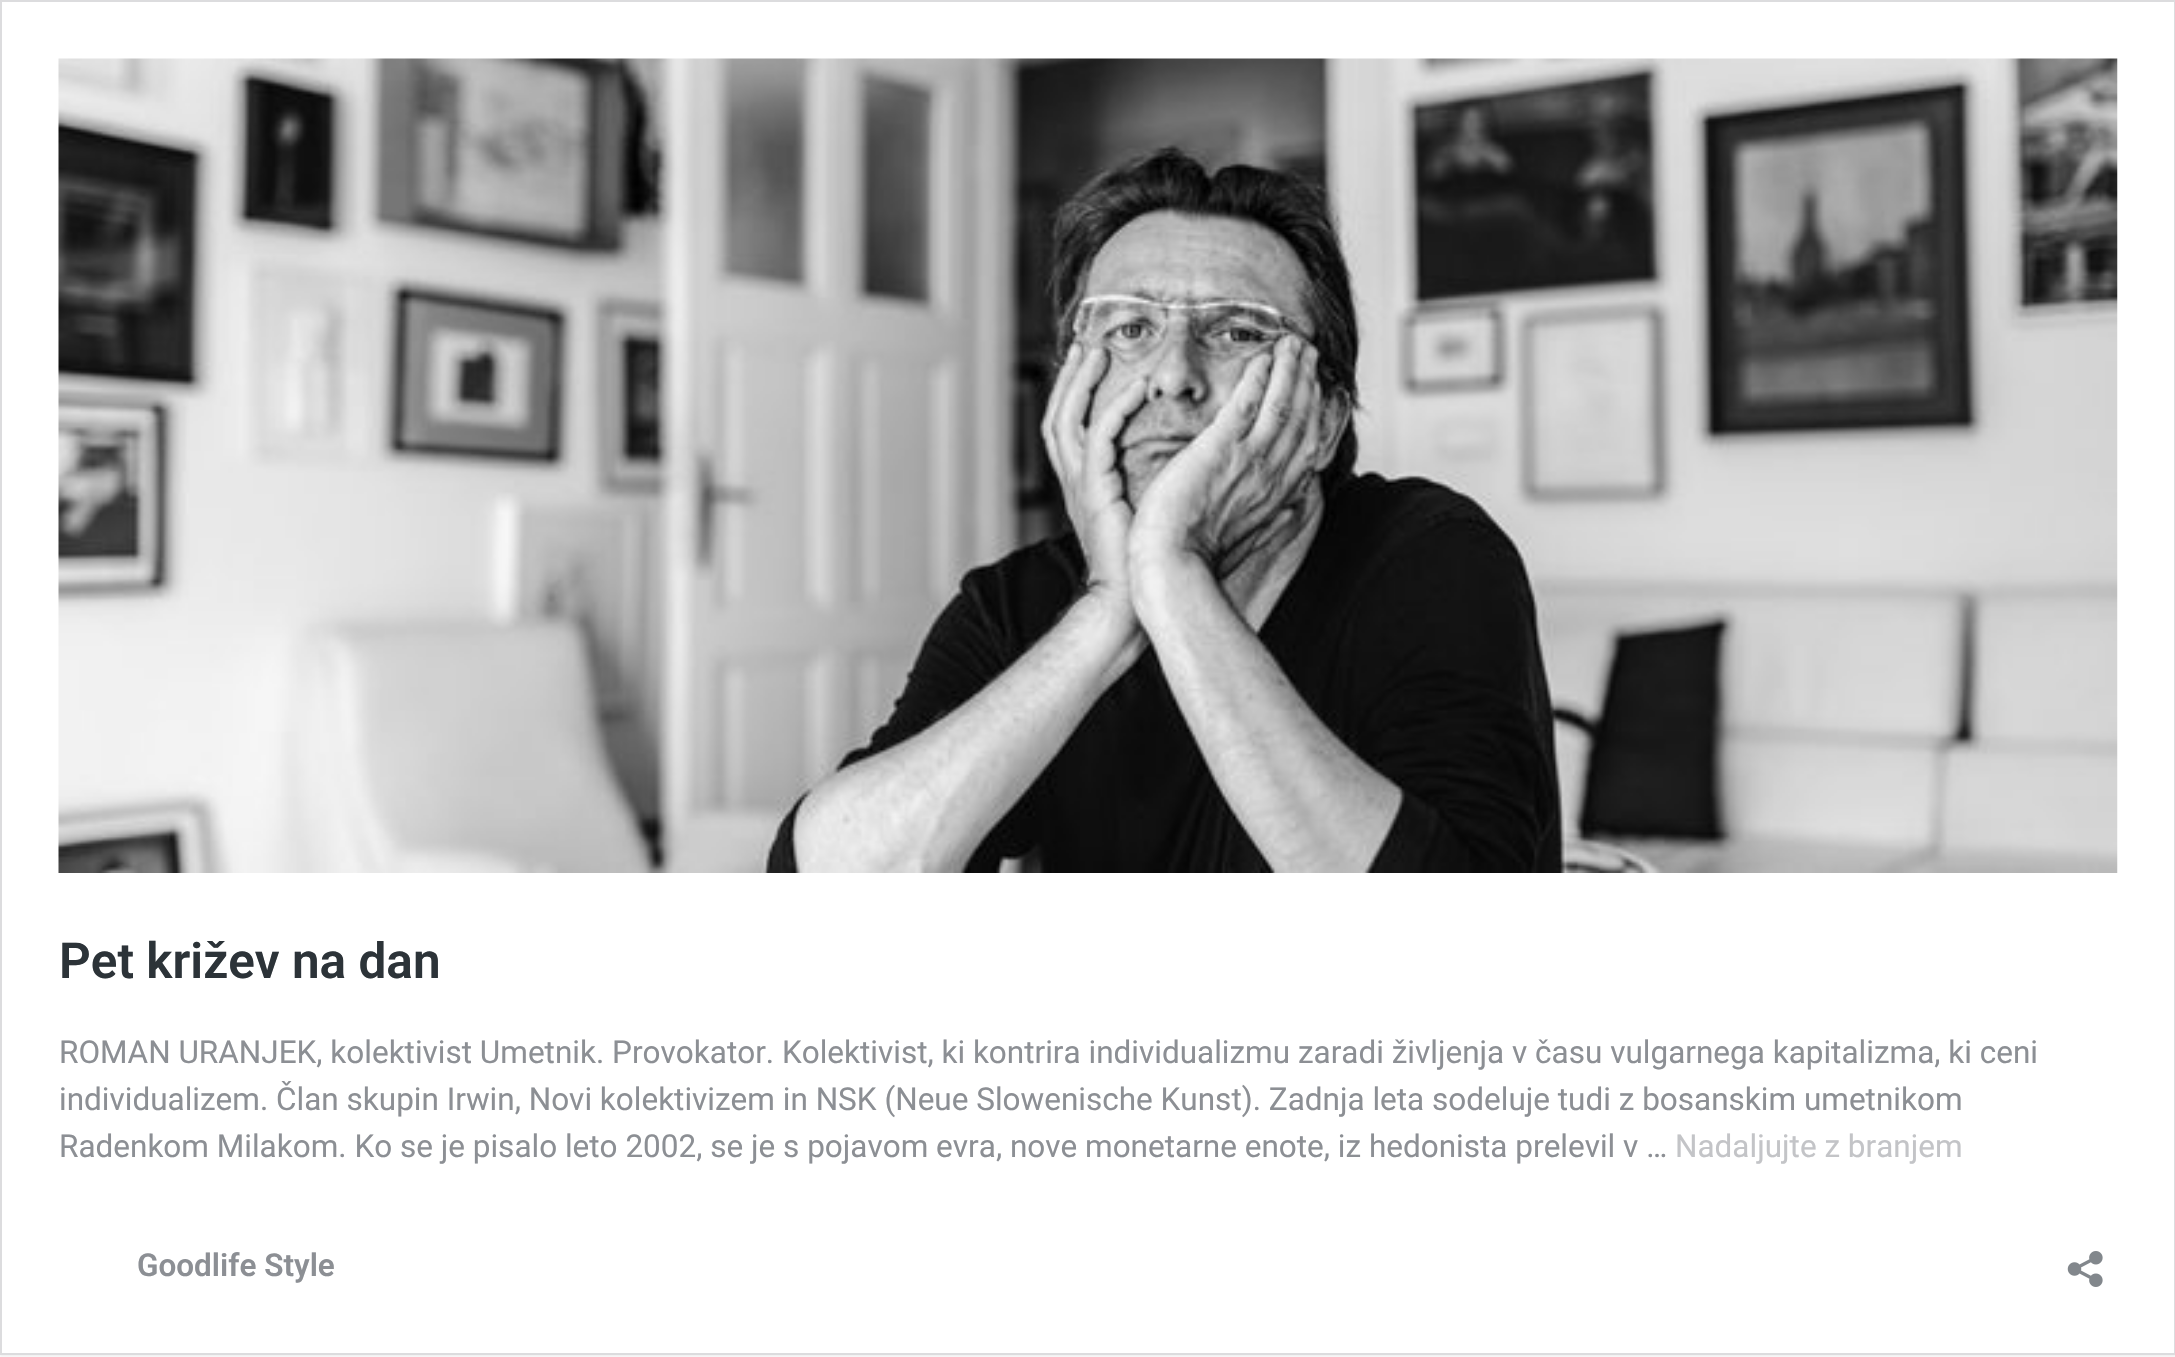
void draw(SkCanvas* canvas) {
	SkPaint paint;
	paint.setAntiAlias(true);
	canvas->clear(0xffffffff);
	paint.setColor(0x0d000000);
	paint.setMaskFilter(SkMaskFilter::MakeBlur(kNormal_SkBlurStyle, 1));
	canvas->drawRect(SkRect::MakeXYWH(0, 2, 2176, 1355), paint);
	paint.setMaskFilter(nullptr);
	paint.setColor(0xffffffff);
	canvas->drawRect(SkRect::MakeXYWH(1, 1, 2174, 1353), paint);
	paint.setStroke(true);
	paint.setStrokeWidth(2);
	paint.setColor(0xffdcdcde);
	canvas->drawRect(SkRect::MakeXYWH(1, 1, 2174, 1353), paint);
	canvas->drawImageRect(SkImages::DeferredFromEncodedData(SkData::MakeFromFileName("img1.png")), SkRect::MakeXYWH(58, 58, 2060, 815), SkSamplingOptions());
	SkFont f1(fontMgr->matchFamilyStyle("Roboto", SkFontStyle(600, SkFontStyle::kNormal_Width, SkFontStyle::kUpright_Slant)), 49.5);
	f1.setSubpixel(true);
	paint.setStroke(false);
	paint.setColor(0xff2c3338);
	canvas->drawString("Pet križev na dan", 59, 978, f1, paint);
	SkFont f2(fontMgr->matchFamilyStyle("Roboto", SkFontStyle::Normal()), 31.5);
	f2.setSubpixel(true);
	paint.setColor(0xff8c8f94);
	canvas->drawString("ROMAN URANJEK, kolektivist Umetnik. Provokator. Kolektivist, ki kontrira individualizmu zaradi življenja v času vulgarnega kapitalizma, ki ceni", 59, 1063, f2, paint);
	canvas->drawString("individualizem. Član skupin Irwin, Novi kolektivizem in NSK (Neue Slowenische Kunst). Zadnja leta sodeluje tudi z bosanskim umetnikom", 59, 1110, f2, paint);
	canvas->drawString("Radenkom Milakom. Ko se je pisalo leto 2002, se je s pojavom evra, nove monetarne enote, iz hedonista prelevil v …", 59, 1157, f2, paint);
	paint.setColor(0xffc3c4c7);
	canvas->drawString("Nadaljujte z branjem", 1675, 1157, f2, paint);
	SkFont f3(fontMgr->matchFamilyStyle("Roboto", SkFontStyle(600, SkFontStyle::kNormal_Width, SkFontStyle::kUpright_Slant)), 31.5);
	f3.setSubpixel(true);
	paint.setColor(0xff8c8f94);
	canvas->drawString("Goodlife Style", 137, 1276, f3, paint);
	canvas->drawImageRect(SkImages::DeferredFromEncodedData(SkData::MakeFromFileName("img2.png")), SkRect::MakeXYWH(2067, 1251, 36, 36), SkSamplingOptions());
}
